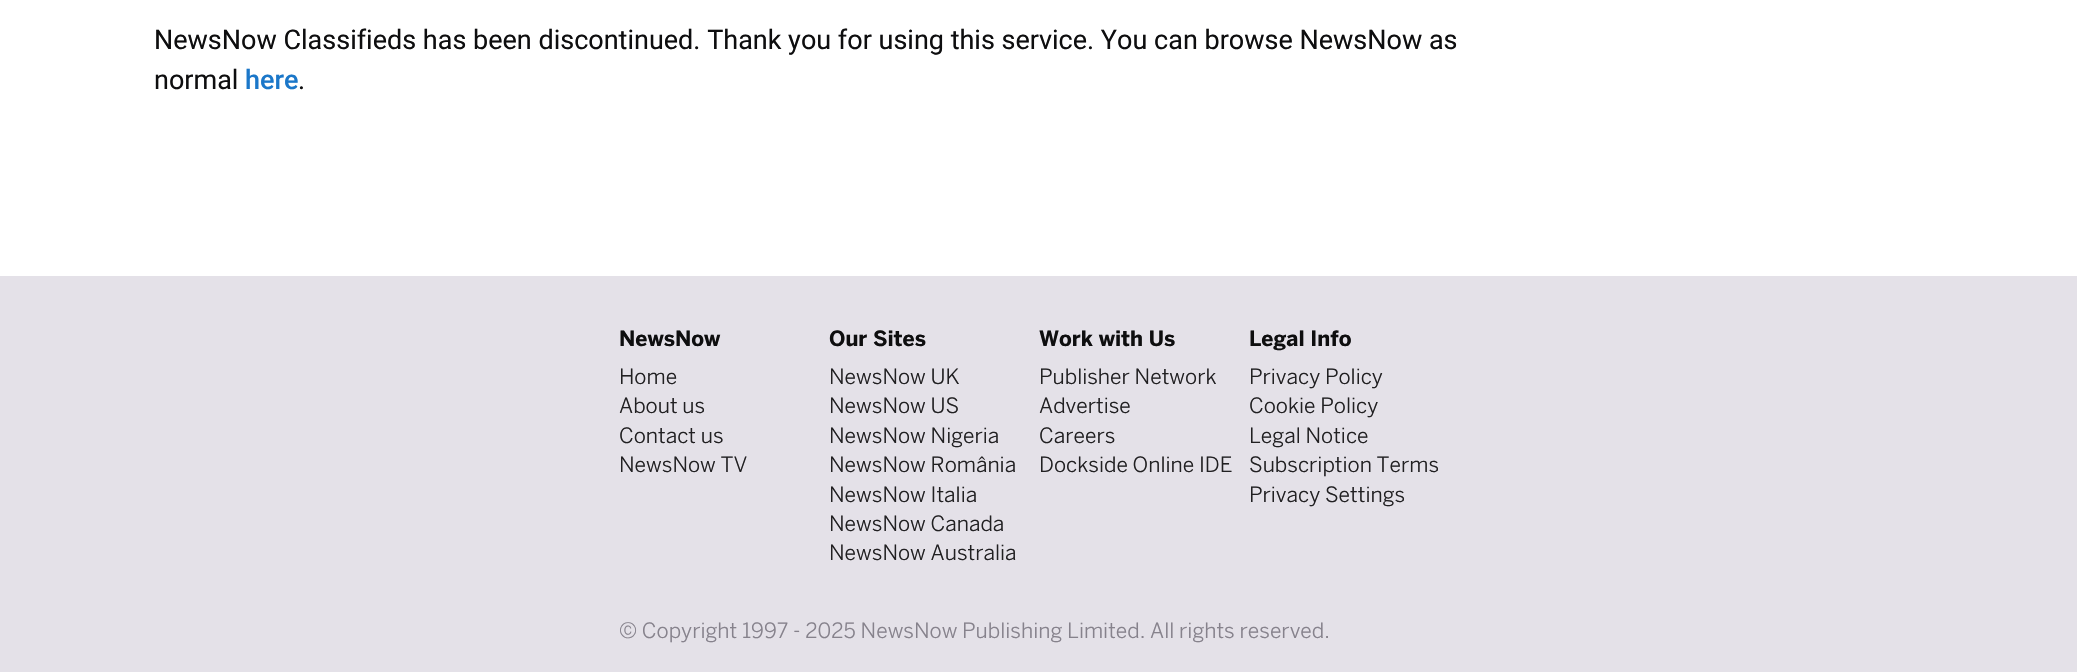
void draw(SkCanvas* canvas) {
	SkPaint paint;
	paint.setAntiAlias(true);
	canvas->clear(0xffffffff);
	SkFont f1(fontMgr->matchFamilyStyle("Roboto", SkFontStyle::Normal()), 27);
	f1.setSubpixel(true);
	paint.setColor(0xff0e0e0f);
	canvas->drawString("NewsNow Classifieds has been discontinued. Thank you for using this service. You can browse NewsNow as", 154, 49, f1, paint);
	canvas->drawString("normal", 154, 89, f1, paint);
	SkFont f2(fontMgr->matchFamilyStyle("Roboto", SkFontStyle(500, SkFontStyle::kNormal_Width, SkFontStyle::kUpright_Slant)), 27);
	f2.setSubpixel(true);
	paint.setColor(0xff1b77c9);
	canvas->drawString("here", 245, 89, f2, paint);
	paint.setColor(0xff0e0e0f);
	canvas->drawString(".", 298, 89, f1, paint);
	paint.setColor(0xffe4e1e8);
	canvas->drawRect(SkRect::MakeXYWH(0, 276, 2077, 396), paint);
	SkFont f3(fontMgr->matchFamilyStyle("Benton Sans", SkFontStyle::Bold()), 21);
	f3.setSubpixel(true);
	paint.setColor(0xff0e0e0f);
	canvas->drawString("NewsNow", 619, 346, f3, paint);
	SkFont f4(fontMgr->matchFamilyStyle("Benton Sans", SkFontStyle::Normal()), 21);
	f4.setSubpixel(true);
	paint.setColor(0xff212022);
	canvas->drawString("Home", 619, 384, f4, paint);
	canvas->drawString("About us", 619, 413, f4, paint);
	canvas->drawString("Contact us", 619, 443, f4, paint);
	canvas->drawString("NewsNow TV", 619, 472, f4, paint);
	paint.setColor(0xff0e0e0f);
	canvas->drawString("Our Sites", 829, 346, f3, paint);
	paint.setColor(0xff212022);
	canvas->drawString("NewsNow UK", 829, 384, f4, paint);
	canvas->drawString("NewsNow US", 829, 413, f4, paint);
	canvas->drawString("NewsNow Nigeria", 829, 443, f4, paint);
	canvas->drawString("NewsNow România", 829, 472, f4, paint);
	canvas->drawString("NewsNow Italia", 829, 502, f4, paint);
	canvas->drawString("NewsNow Canada", 829, 531, f4, paint);
	canvas->drawString("NewsNow Australia", 829, 560, f4, paint);
	paint.setColor(0xff0e0e0f);
	canvas->drawString("Work with Us", 1039, 346, f3, paint);
	paint.setColor(0xff212022);
	canvas->drawString("Publisher Network", 1039, 384, f4, paint);
	canvas->drawString("Advertise", 1039, 413, f4, paint);
	canvas->drawString("Careers", 1039, 443, f4, paint);
	canvas->drawString("Dockside Online IDE", 1039, 472, f4, paint);
	paint.setColor(0xff0e0e0f);
	canvas->drawString("Legal Info", 1249, 346, f3, paint);
	paint.setColor(0xff212022);
	canvas->drawString("Privacy Policy", 1249, 384, f4, paint);
	canvas->drawString("Cookie Policy", 1249, 413, f4, paint);
	canvas->drawString("Legal Notice", 1249, 443, f4, paint);
	canvas->drawString("Subscription Terms", 1249, 472, f4, paint);
	canvas->drawString("Privacy Settings", 1249, 502, f4, paint);
	paint.setColor(0xff86828c);
	canvas->drawString("© Copyright 1997 - 2025 NewsNow Publishing Limited. All rights reserved.", 619, 638, f4, paint);
}
